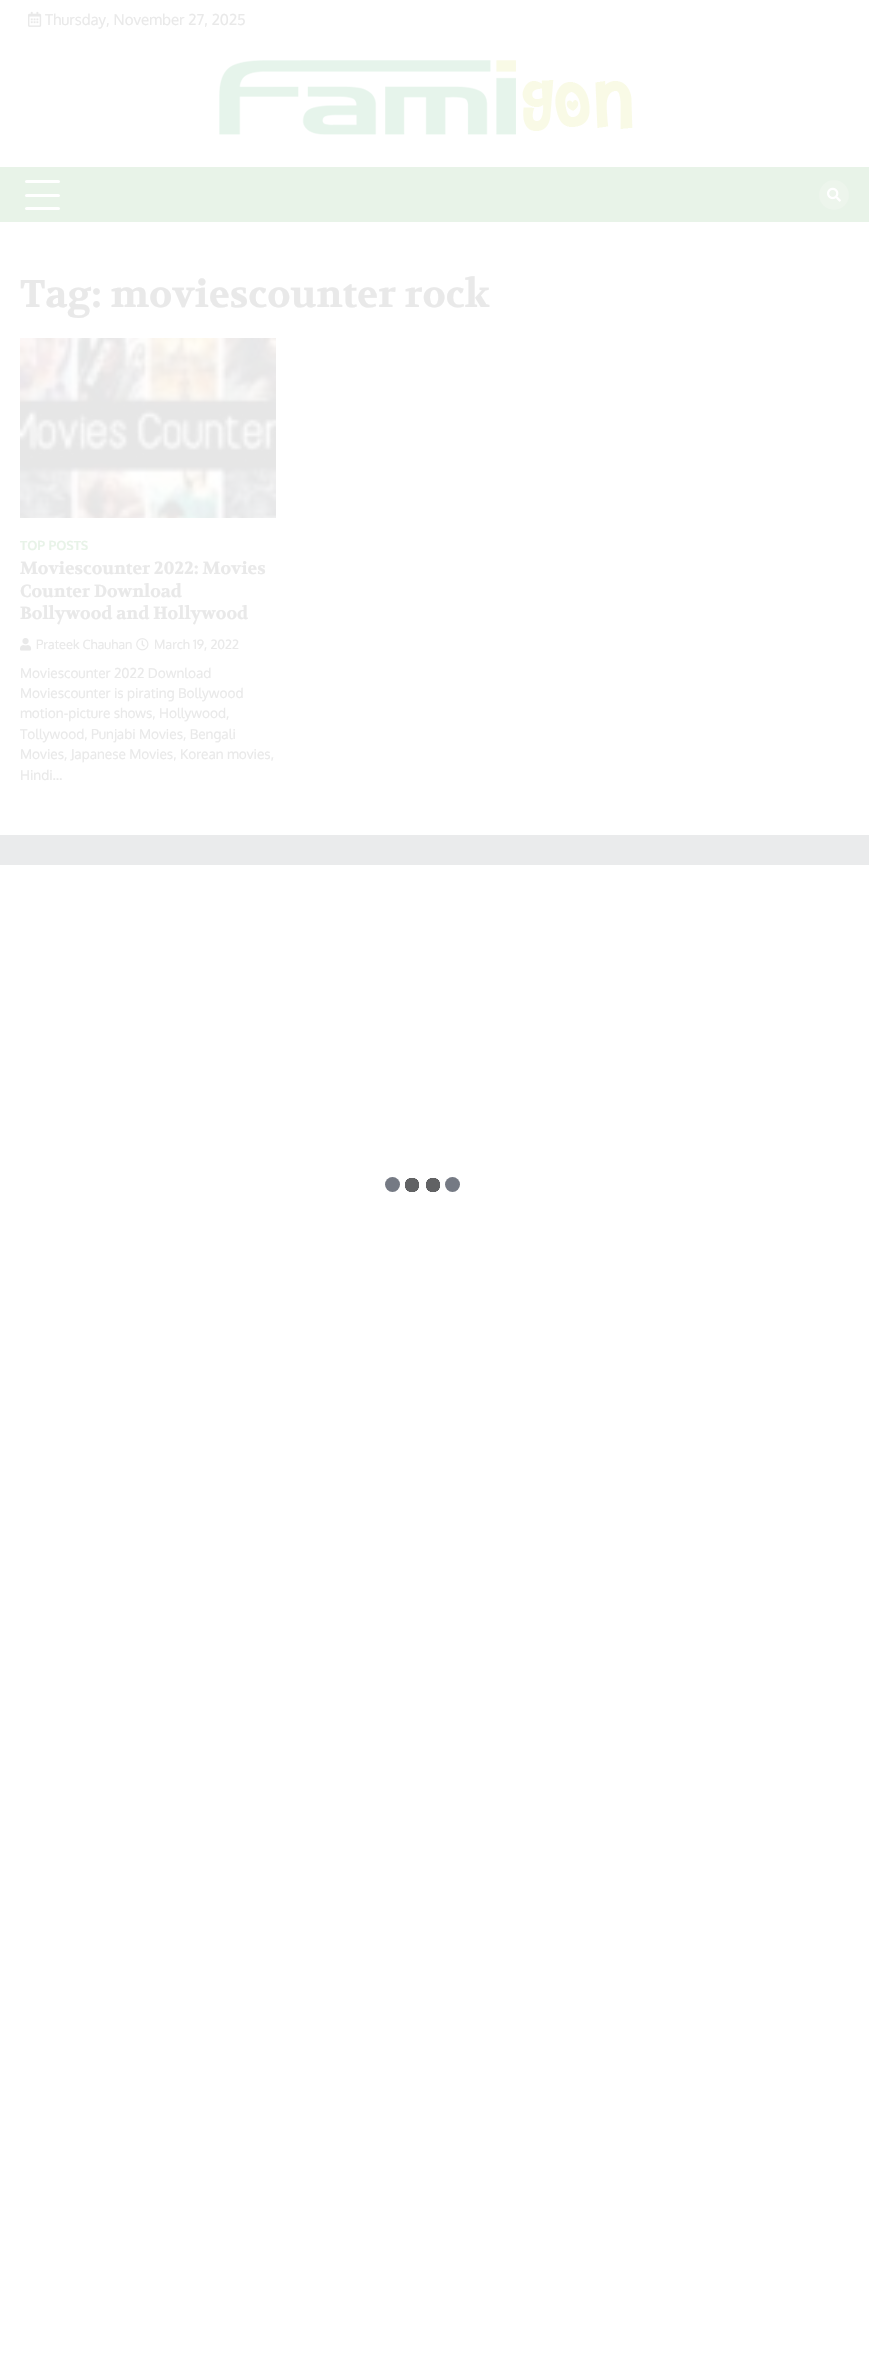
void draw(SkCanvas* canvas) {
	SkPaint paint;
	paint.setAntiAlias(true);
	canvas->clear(0xffffffff);
	canvas->drawImageRect(SkImages::DeferredFromEncodedData(SkData::MakeFromFileName("img1.png")), SkRect::MakeXYWH(28, 11, 14, 16), SkSamplingOptions());
	SkFont f1(fontMgr->matchFamilyStyle("Oxygen", SkFontStyle::Normal()), 15);
	f1.setSubpixel(true);
	paint.setColor(0xffe9e9e9);
	canvas->drawString("Thursday, November 27, 2025", 45, 25, f1, paint);
	canvas->drawImageRect(SkImages::DeferredFromEncodedData(SkData::MakeFromFileName("img2.png")), SkRect::MakeXYWH(219, 60, 414, 75), SkSamplingOptions());
	paint.setColor(0xffe8f3e8);
	canvas->drawRect(SkRect::MakeXYWH(0, 167, 869, 55), paint);
	paint.setColor(0xffffffff);
	canvas->drawRoundRect(SkRect::MakeXYWH(25, 180, 35, 3), 1.5, 1.5, paint);
	canvas->drawRoundRect(SkRect::MakeXYWH(25, 194, 35, 3), 1.5, 1.5, paint);
	canvas->drawRoundRect(SkRect::MakeXYWH(25, 207, 35, 3), 1.5, 1.5, paint);
	paint.setColor(0xffedf5ec);
	canvas->drawCircle(834, 195, 15, paint);
	canvas->drawImageRect(SkImages::DeferredFromEncodedData(SkData::MakeFromFileName("img3.png")), SkRect::MakeXYWH(827, 187, 14, 15), SkSamplingOptions());
	SkFont f2(fontMgr->matchFamilyStyle("Volkhov", SkFontStyle::Bold()), 38.5);
	f2.setSubpixel(true);
	paint.setColor(0xffe9e9e9);
	canvas->drawString("Tag: moviescounter rock", 20, 307, f2, paint);
	canvas->drawImageRect(SkImages::DeferredFromEncodedData(SkData::MakeFromFileName("img4.png")), SkRect::MakeXYWH(20, 338, 256, 180), SkSamplingOptions());
	SkFont f3(fontMgr->matchFamilyStyle("Oxygen", SkFontStyle::Bold()), 12.75);
	f3.setSubpixel(true);
	paint.setColor(0xffe8f3e8);
	canvas->drawString("TOP POSTS", 20, 550, f3, paint);
	SkFont f4(fontMgr->matchFamilyStyle("Volkhov", SkFontStyle::Bold()), 17.5);
	f4.setSubpixel(true);
	paint.setColor(0xffe9e9e9);
	canvas->drawString("Moviescounter 2022: Movies", 20, 574, f4, paint);
	canvas->drawString("Counter Download", 20, 597, f4, paint);
	canvas->drawString("Bollywood and Hollywood", 20, 619, f4, paint);
	canvas->drawImageRect(SkImages::DeferredFromEncodedData(SkData::MakeFromFileName("img5.png")), SkRect::MakeXYWH(20, 638, 12, 13), SkSamplingOptions());
	SkFont f5(fontMgr->matchFamilyStyle("Oxygen", SkFontStyle::Normal()), 12.75);
	f5.setSubpixel(true);
	canvas->drawString("Prateek Chauhan", 36, 649, f5, paint);
	canvas->drawImageRect(SkImages::DeferredFromEncodedData(SkData::MakeFromFileName("img6.png")), SkRect::MakeXYWH(136, 638, 13, 13), SkSamplingOptions());
	canvas->drawString("March 19, 2022", 154, 649, f5, paint);
	SkFont f6(fontMgr->matchFamilyStyle("Oxygen", SkFontStyle::Normal()), 13.6);
	f6.setSubpixel(true);
	canvas->drawString("Moviescounter 2022 Download", 20, 678, f6, paint);
	canvas->drawString("Moviescounter is pirating Bollywood", 20, 698, f6, paint);
	canvas->drawString("motion-picture shows, Hollywood,", 20, 718, f6, paint);
	canvas->drawString("Tollywood, Punjabi Movies, Bengali", 20, 739, f6, paint);
	canvas->drawString("Movies, Japanese Movies, Korean movies,", 20, 759, f6, paint);
	canvas->drawString("Hindi…", 20, 780, f6, paint);
	{
		const SkColor colors[] = {0xff616264, 0xffffffff};
		const float stops[] = {0.95, 1};
		paint.setShader(SkGradientShader::MakeRadial({433, 1185}, 7.5, colors, stops, 2, SkTileMode::kClamp));
		paint.setAlpha(255);
	}
	canvas->drawRect(SkRect::MakeXYWH(426, 1178, 14, 14), paint);
	{
		const SkColor colors[] = {0xff616264, 0xffffffff};
		const float stops[] = {0.95, 1};
		paint.setShader(SkGradientShader::MakeRadial({412, 1185}, 7.5, colors, stops, 2, SkTileMode::kClamp));
		paint.setAlpha(255);
	}
	canvas->drawRect(SkRect::MakeXYWH(405, 1178, 14, 14), paint);
	paint.setShader(nullptr);
	paint.setColor(0xff757a84);
	canvas->drawCircle(392.5, 1184.5, 7.5, paint);
	canvas->drawCircle(452.5, 1184.5, 7.5, paint);
	paint.setColor(0xffeaebec);
	canvas->drawRect(SkRect::MakeXYWH(0, 835, 869, 30), paint);
}
